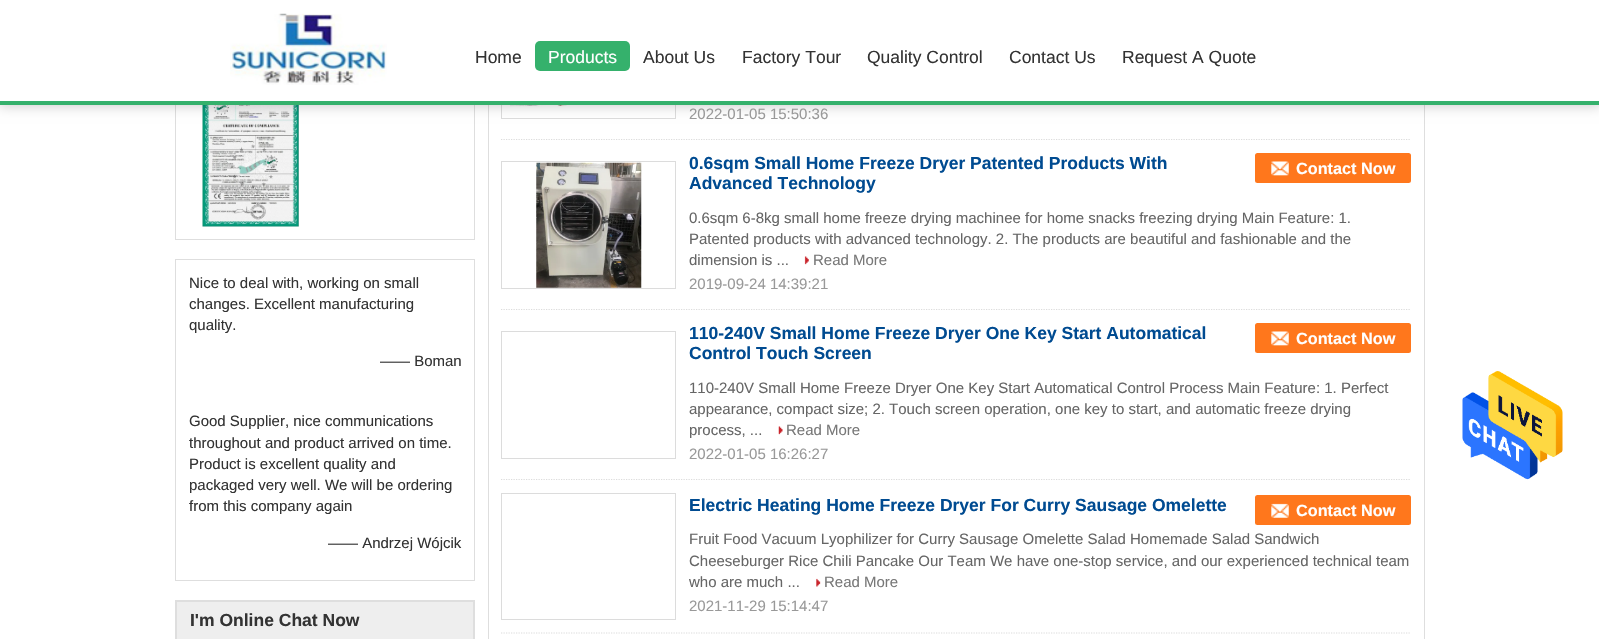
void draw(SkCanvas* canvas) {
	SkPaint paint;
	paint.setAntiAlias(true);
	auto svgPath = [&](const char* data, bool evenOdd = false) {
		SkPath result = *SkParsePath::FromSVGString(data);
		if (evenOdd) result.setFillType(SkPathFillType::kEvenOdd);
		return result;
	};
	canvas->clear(0xffffffff);
	paint.setStroke(true);
	paint.setStrokeWidth(1);
	paint.setColor(0xffdedede);
	canvas->drawRect(SkRect::MakeXYWH(175.5, 81.5, 299, 158), paint);
	canvas->drawImageRect(SkImages::DeferredFromEncodedData(SkData::MakeFromFileName("img2.png")), SkRect::MakeXYWH(202, 105, 97, 122), SkSamplingOptions());
	canvas->drawRect(SkRect::MakeXYWH(488.5, -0.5, 936, 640), paint);
	paint.setColor(0xffdcdcdc);
	canvas->drawRect(SkRect::MakeXYWH(501.5, -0.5, 174, 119), paint);
	canvas->drawImageRect(SkImages::DeferredFromEncodedData(SkData::MakeFromFileName("img3.png")), SkRect::MakeXYWH(510, 105, 158, 2), SkSamplingOptions());
	paint.setStroke(false);
	paint.setColor(0x33000000);
	paint.setMaskFilter(SkMaskFilter::MakeBlur(kNormal_SkBlurStyle, 6));
	canvas->drawRect(SkRect::MakeXYWH(-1, -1, 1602, 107), paint);
	paint.setMaskFilter(nullptr);
	paint.setColor(0xffffffff);
	canvas->drawRect(SkRect::MakeXYWH(0, 0, 1599, 101), paint);
	paint.setColor(0xff35b16c);
	canvas->drawRect(SkRect::MakeXYWH(0, 101, 1599, 4), paint);
	canvas->drawImageRect(SkImages::DeferredFromEncodedData(SkData::MakeFromFileName("img1.png")), SkRect::MakeXYWH(230, 13, 157, 72), SkSamplingOptions());
	SkFont f1(fontMgr->matchFamilyStyle("Liberation Sans", SkFontStyle::Normal()), 17.5);
	f1.setSubpixel(true);
	paint.setColor(0xff333333);
	canvas->drawString("Home", 475, 63, f1, paint);
	paint.setColor(0xff35b16c);
	canvas->drawRoundRect(SkRect::MakeXYWH(535, 41, 95, 30), 5, 5, paint);
	paint.setColor(0xffffffff);
	canvas->drawString("Products", 548, 63, f1, paint);
	paint.setColor(0xff333333);
	canvas->drawString("About Us", 643, 63, f1, paint);
	canvas->drawString("Factory Tour", 742, 63, f1, paint);
	canvas->drawString("Quality Control", 867, 63, f1, paint);
	canvas->drawString("Contact Us", 1009, 63, f1, paint);
	canvas->drawString("Request A Quote", 1122, 63, f1, paint);
	paint.setStroke(true);
	paint.setColor(0xffdedede);
	canvas->drawRect(SkRect::MakeXYWH(175.5, 259.5, 299, 321), paint);
	SkFont f2(fontMgr->matchFamilyStyle("Liberation Sans", SkFontStyle::Normal()), 15);
	f2.setSubpixel(true);
	paint.setStroke(false);
	paint.setColor(0xff333333);
	canvas->drawString("Nice to deal with, working on small", 189, 288, f2, paint);
	canvas->drawString("changes. Excellent manufacturing", 189, 309, f2, paint);
	canvas->drawString("quality.", 189, 330, f2, paint);
	canvas->drawString("—— Boman", 380, 366, f2, paint);
	canvas->drawString("Good Supplier, nice communications", 189, 426, f2, paint);
	canvas->drawString("throughout and product arrived on time.", 189, 448, f2, paint);
	canvas->drawString("Product is excellent quality and", 189, 469, f2, paint);
	canvas->drawString("packaged very well. We will be ordering", 189, 490, f2, paint);
	canvas->drawString("from this company again", 189, 511, f2, paint);
	canvas->drawString("—— Andrzej Wójcik", 328, 548, f2, paint);
	paint.setStroke(true);
	paint.setColor(0xffdedede);
	canvas->drawRect(SkRect::MakeXYWH(175.5, 600.5, 299, 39), paint);
	paint.setStroke(false);
	paint.setColor(0xffeeeeee);
	canvas->drawRect(SkRect::MakeXYWH(176.5, 601.5, 297, 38), paint);
	paint.setStroke(true);
	paint.setColor(0xffdedede);
	canvas->drawRect(SkRect::MakeXYWH(176.5, 601.5, 297, 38), paint);
	SkFont f3(fontMgr->matchFamilyStyle("Liberation Sans", SkFontStyle::Bold()), 17.5);
	f3.setSubpixel(true);
	paint.setStroke(false);
	paint.setColor(0xff333333);
	canvas->drawString("I'm Online Chat Now", 190, 626, f3, paint);
	paint.setStroke(true);
	paint.setStrokeWidth(1.2);
	paint.setColor(0xffdcdcdc);
	paint.setPathEffect(SkDashPathEffect::Make({{1.25f, 1.25f}}, 0));
	canvas->drawPath(svgPath("M501 139.5H1411"), paint);
	paint.setPathEffect(nullptr);
	paint.setStroke(false);
	paint.setColor(0xff999999);
	canvas->drawString("2022-01-05 15:50:36", 689, 119, f2, paint);
	paint.setStroke(true);
	paint.setColor(0xffdcdcdc);
	paint.setPathEffect(SkDashPathEffect::Make({{1.25f, 1.25f}}, 0));
	canvas->drawPath(svgPath("M501 309.5H1411"), paint);
	paint.setPathEffect(nullptr);
	paint.setStrokeWidth(1);
	canvas->drawRect(SkRect::MakeXYWH(501.5, 161.5, 174, 127), paint);
	canvas->drawImageRect(SkImages::DeferredFromEncodedData(SkData::MakeFromFileName("img4.png")), SkRect::MakeXYWH(536, 162, 106, 126), SkSamplingOptions());
	paint.setStroke(false);
	paint.setColor(0xff004b91);
	canvas->drawString("0.6sqm Small Home Freeze Dryer Patented Products With", 689, 169, f3, paint);
	paint.setColor(0xffff771c);
	canvas->drawRoundRect(SkRect::MakeXYWH(1255, 153, 156, 30), 2.5, 2.5, paint);
	canvas->drawImageRect(SkImages::DeferredFromEncodedData(SkData::MakeFromFileName("img5.png")), SkRect::MakeXYWH(1271, 161, 18, 15), SkSamplingOptions());
	SkFont f4(fontMgr->matchFamilyStyle("Liberation Sans", SkFontStyle::Bold()), 16.25);
	f4.setSubpixel(true);
	paint.setColor(0xffffffff);
	canvas->drawString("Contact Now", 1296, 174, f4, paint);
	paint.setColor(0xff004b91);
	canvas->drawString("Advanced Technology", 689, 189, f3, paint);
	paint.setColor(0xff666666);
	canvas->drawString("0.6sqm 6-8kg small home freeze drying machinee for home snacks freezing drying Main Feature: 1.", 689, 223, f2, paint);
	canvas->drawString("Patented products with advanced technology. 2. The products are beautiful and fashionable and the", 689, 244, f2, paint);
	canvas->drawString("dimension is ...", 689, 265, f2, paint);
	canvas->drawImageRect(SkImages::DeferredFromEncodedData(SkData::MakeFromFileName("img6.png")), SkRect::MakeXYWH(804, 256, 5, 9), SkSamplingOptions());
	paint.setColor(0xff787878);
	canvas->drawString("Read More", 813, 265, f2, paint);
	paint.setColor(0xff999999);
	canvas->drawString("2019-09-24 14:39:21", 689, 289, f2, paint);
	paint.setStroke(true);
	paint.setStrokeWidth(1.2);
	paint.setColor(0xffdcdcdc);
	paint.setPathEffect(SkDashPathEffect::Make({{1.25f, 1.25f}}, 0));
	canvas->drawPath(svgPath("M501 479.5H1411"), paint);
	paint.setPathEffect(nullptr);
	paint.setStrokeWidth(1);
	canvas->drawRect(SkRect::MakeXYWH(501.5, 331.5, 174, 127), paint);
	paint.setStroke(false);
	paint.setColor(0xff004b91);
	canvas->drawString("110-240V Small Home Freeze Dryer One Key Start Automatical", 689, 339, f3, paint);
	paint.setColor(0xffff771c);
	canvas->drawRoundRect(SkRect::MakeXYWH(1255, 323, 156, 30), 2.5, 2.5, paint);
	canvas->drawImageRect(SkImages::DeferredFromEncodedData(SkData::MakeFromFileName("img5.png")), SkRect::MakeXYWH(1271, 331, 18, 15), SkSamplingOptions());
	paint.setColor(0xffffffff);
	canvas->drawString("Contact Now", 1296, 344, f4, paint);
	paint.setColor(0xff004b91);
	canvas->drawString("Control Touch Screen", 689, 359, f3, paint);
	paint.setColor(0xff666666);
	canvas->drawString("110-240V Small Home Freeze Dryer One Key Start Automatical Control Process Main Feature: 1. Perfect", 689, 393, f2, paint);
	canvas->drawString("appearance, compact size; 2. Touch screen operation, one key to start, and automatic freeze drying", 689, 414, f2, paint);
	canvas->drawString("process, ...", 689, 435, f2, paint);
	canvas->drawImageRect(SkImages::DeferredFromEncodedData(SkData::MakeFromFileName("img7.png")), SkRect::MakeXYWH(778, 426, 5, 9), SkSamplingOptions());
	paint.setColor(0xff787878);
	canvas->drawString("Read More", 786, 435, f2, paint);
	paint.setColor(0xff999999);
	canvas->drawString("2022-01-05 16:26:27", 689, 459, f2, paint);
	paint.setStroke(true);
	paint.setStrokeWidth(1.2);
	paint.setColor(0xffdcdcdc);
	paint.setPathEffect(SkDashPathEffect::Make({{1.25f, 1.25f}}, 0));
	canvas->drawPath(svgPath("M501 633H1411"), paint);
	paint.setPathEffect(nullptr);
	paint.setStrokeWidth(1);
	canvas->drawRect(SkRect::MakeXYWH(501.5, 493.5, 174, 126), paint);
	paint.setStroke(false);
	paint.setColor(0xff004b91);
	canvas->drawString("Electric Heating Home Freeze Dryer For Curry Sausage Omelette", 689, 511, f3, paint);
	paint.setColor(0xffff771c);
	canvas->drawRoundRect(SkRect::MakeXYWH(1255, 495, 156, 30), 2.5, 2.5, paint);
	canvas->drawImageRect(SkImages::DeferredFromEncodedData(SkData::MakeFromFileName("img8.png")), SkRect::MakeXYWH(1271, 503, 18, 15), SkSamplingOptions());
	paint.setColor(0xffffffff);
	canvas->drawString("Contact Now", 1296, 516, f4, paint);
	paint.setColor(0xff666666);
	canvas->drawString("Fruit Food Vacuum Lyophilizer for Curry Sausage Omelette Salad Homemade Salad Sandwich", 689, 544, f2, paint);
	canvas->drawString("Cheeseburger Rice Chili Pancake Our Team We have one-stop service, and our experienced technical team", 689, 566, f2, paint);
	canvas->drawString("who are much ...", 689, 587, f2, paint);
	canvas->drawImageRect(SkImages::DeferredFromEncodedData(SkData::MakeFromFileName("img9.png")), SkRect::MakeXYWH(816, 578, 5, 9), SkSamplingOptions());
	paint.setColor(0xff787878);
	canvas->drawString("Read More", 824, 587, f2, paint);
	paint.setColor(0xff999999);
	canvas->drawString("2021-11-29 15:14:47", 689, 611, f2, paint);
	canvas->drawImageRect(SkImages::DeferredFromEncodedData(SkData::MakeFromFileName("img10.png")), SkRect::MakeXYWH(1462, 371, 101, 109), SkSamplingOptions());
}
